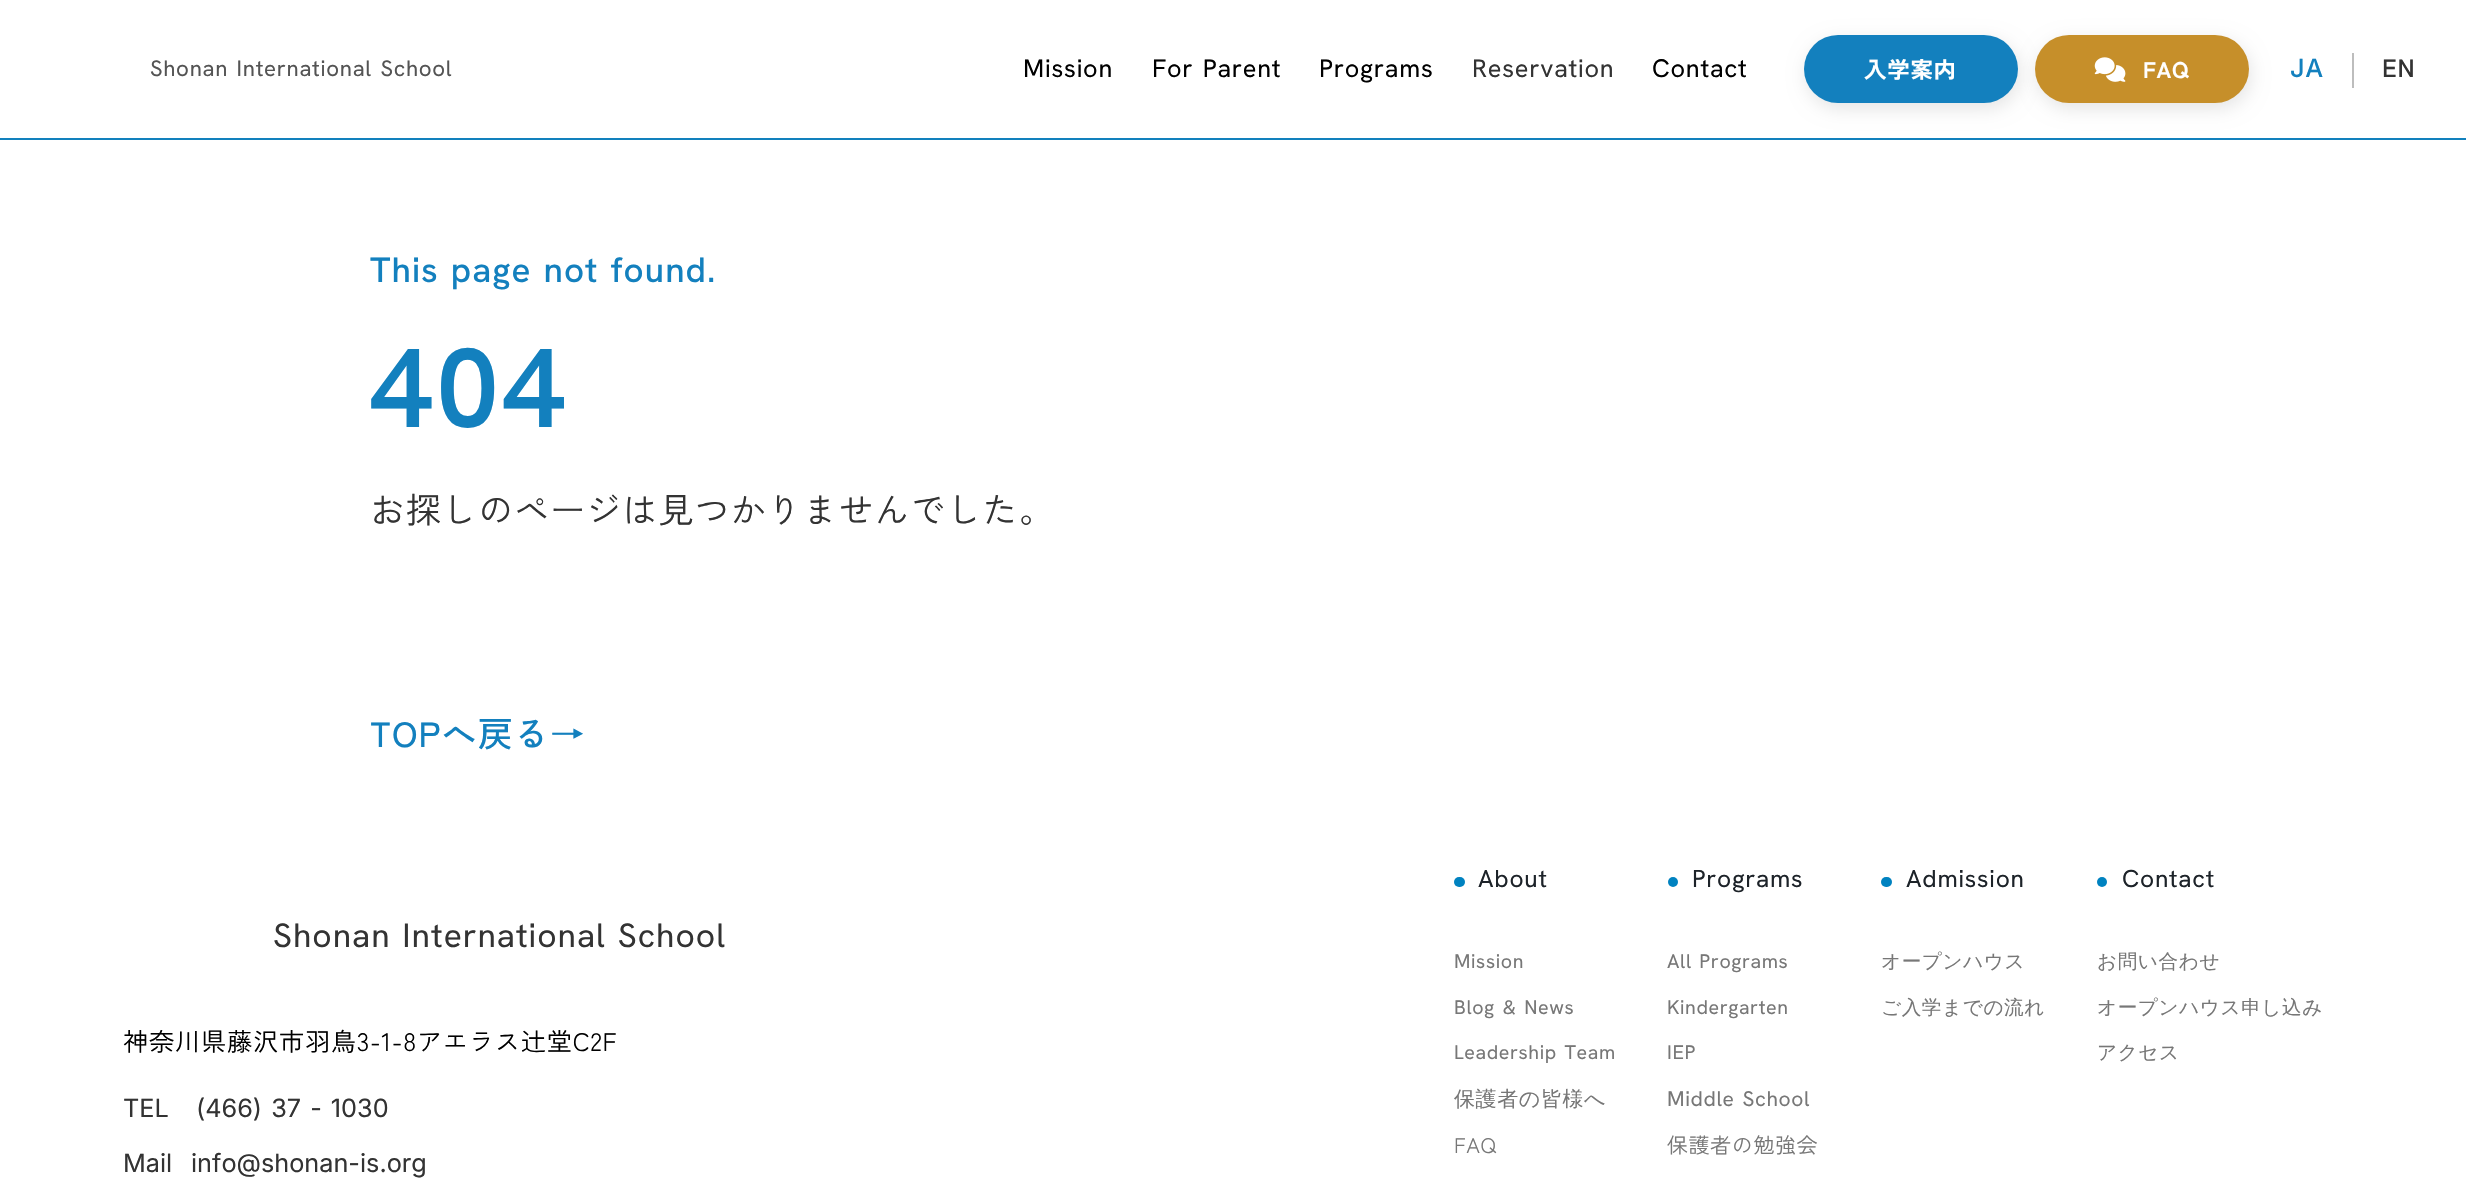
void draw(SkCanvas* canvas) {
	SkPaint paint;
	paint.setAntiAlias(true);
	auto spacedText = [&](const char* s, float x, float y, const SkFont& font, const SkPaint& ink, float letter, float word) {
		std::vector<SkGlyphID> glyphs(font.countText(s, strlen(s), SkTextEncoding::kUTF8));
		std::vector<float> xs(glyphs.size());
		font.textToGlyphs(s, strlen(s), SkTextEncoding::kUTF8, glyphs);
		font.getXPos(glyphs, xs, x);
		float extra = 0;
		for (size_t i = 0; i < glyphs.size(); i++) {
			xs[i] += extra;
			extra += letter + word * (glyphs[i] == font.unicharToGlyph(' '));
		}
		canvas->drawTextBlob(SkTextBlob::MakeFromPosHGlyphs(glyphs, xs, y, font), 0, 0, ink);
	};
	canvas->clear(0xffffffff);
	paint.setColor(0xff1281bd);
	canvas->drawRect(SkRect::MakeXYWH(0, 138, 2466, 2), paint);
	SkFont f1(fontMgr->matchFamilyStyle("Hanken Grotesk", SkFontStyle::Normal()), 22.25);
	f1.setSubpixel(true);
	paint.setColor(0xff545454);
	spacedText("Shonan International School", 150, 76, f1, paint, 0.7, 2);
	SkFont f2(fontMgr->matchFamilyStyle("Hanken Grotesk", SkFontStyle::Normal()), 25.25);
	f2.setSubpixel(true);
	paint.setColor(0xff000000);
	spacedText("Mission", 1023, 77, f2, paint, 0.75, 0);
	spacedText("For Parent", 1152, 77, f2, paint, 0.75, 2);
	spacedText("Programs", 1319, 77, f2, paint, 0.75, 0);
	paint.setColor(0xff333333);
	spacedText("Reservation", 1472, 77, f2, paint, 0.75, 0);
	paint.setColor(0xff000000);
	spacedText("Contact", 1652, 77, f2, paint, 0.75, 0);
	paint.setColor(0x1a000000);
	paint.setMaskFilter(SkMaskFilter::MakeBlur(kNormal_SkBlurStyle, 9));
	canvas->drawRoundRect(SkRect::MakeXYWH(1806, 40, 214, 69), 34.5, 34.5, paint);
	paint.setMaskFilter(nullptr);
	paint.setColor(0xff1380be);
	canvas->drawRoundRect(SkRect::MakeXYWH(1804, 35, 214, 68), 34, 34, paint);
	SkFont f3(fontMgr->matchFamilyStyle("Zen Kaku Gothic New", SkFontStyle::Bold()), 22.5);
	f3.setSubpixel(true);
	paint.setColor(0xffffffff);
	spacedText("入学案内", 1864, 78, f3, paint, 0.7, 0);
	paint.setColor(0x1a000000);
	paint.setMaskFilter(SkMaskFilter::MakeBlur(kNormal_SkBlurStyle, 9));
	canvas->drawRoundRect(SkRect::MakeXYWH(2037, 40, 214, 69), 34.5, 34.5, paint);
	paint.setMaskFilter(nullptr);
	paint.setColor(0xffc68f2a);
	canvas->drawRoundRect(SkRect::MakeXYWH(2035, 35, 214, 68), 34, 34, paint);
	canvas->drawImageRect(SkImages::DeferredFromEncodedData(SkData::MakeFromFileName("img1.png")), SkRect::MakeXYWH(2094, 57, 32, 25), SkSamplingOptions());
	paint.setColor(0xffffffff);
	spacedText("FAQ", 2143, 78, f3, paint, 0.7, 0);
	paint.setColor(0xffbdbdbd);
	canvas->drawRect(SkRect::MakeXYWH(2352, 53, 2, 35), paint);
	SkFont f4(fontMgr->matchFamilyStyle("Inter", SkFontStyle(500, SkFontStyle::kNormal_Width, SkFontStyle::kUpright_Slant)), 25.25);
	f4.setSubpixel(true);
	paint.setColor(0xff1380be);
	spacedText("JA", 2290, 77, f4, paint, 0.75, 0);
	SkFont f5(fontMgr->matchFamilyStyle("Hanken Grotesk", SkFontStyle(500, SkFontStyle::kNormal_Width, SkFontStyle::kUpright_Slant)), 25.25);
	f5.setSubpixel(true);
	paint.setColor(0xff333333);
	spacedText("EN", 2382, 77, f5, paint, 0.75, 0);
	SkFont f6(fontMgr->matchFamilyStyle("Hanken Grotesk", SkFontStyle(500, SkFontStyle::kNormal_Width, SkFontStyle::kUpright_Slant)), 35);
	f6.setSubpixel(true);
	paint.setColor(0xff1380be);
	spacedText("This page not found.", 370, 282, f6, paint, 1.05, 2);
	SkFont f7(fontMgr->matchFamilyStyle("Hanken Grotesk", SkFontStyle(600, SkFontStyle::kNormal_Width, SkFontStyle::kUpright_Slant)), 112);
	f7.setSubpixel(true);
	spacedText("404", 370, 427, f7, paint, 3.5, 0);
	SkFont f8(fontMgr->matchFamilyStyle("Zen Kaku Gothic New", SkFontStyle::Normal()), 35);
	f8.setSubpixel(true);
	paint.setColor(0xff333333);
	spacedText("お探しのページは見つかりませんでした。", 370, 523, f8, paint, 1.05, 0);
	SkFont f9(fontMgr->matchFamilyStyle("Zen Kaku Gothic New", SkFontStyle(500, SkFontStyle::kNormal_Width, SkFontStyle::kUpright_Slant)), 35);
	f9.setSubpixel(true);
	paint.setColor(0xff1380be);
	spacedText("TOPへ戻る→", 370, 747, f9, paint, 1.05, 0);
	SkFont f10(fontMgr->matchFamilyStyle("Hanken Grotesk", SkFontStyle::Normal()), 33.6);
	f10.setSubpixel(true);
	paint.setColor(0xff333333);
	spacedText("Shonan International School", 273, 947, f10, paint, 1, 2);
	SkFont f11(fontMgr->matchFamilyStyle("Zen Kaku Gothic New", SkFontStyle::Normal()), 25.25);
	f11.setSubpixel(true);
	paint.setColor(0xff000000);
	spacedText("神奈川県藤沢市羽鳥3-1-8アエラス辻堂C2F", 123, 1051, f11, paint, 0.75, 0);
	SkFont f12(fontMgr->matchFamilyStyle("Inter", SkFontStyle::Normal()), 25.25);
	f12.setSubpixel(true);
	paint.setColor(0xff333333);
	canvas->drawString("TEL", 123, 1117, f12, paint);
	spacedText("(466) 37 - 1030", 196, 1117, f12, paint, 0, 2);
	canvas->drawString("Mail", 123, 1172, f12, paint);
	canvas->drawString("info@shonan-is.org", 191, 1172, f12, paint);
	paint.setColor(0xff0082c0);
	canvas->drawRoundRect(SkRect::MakeXYWH(1454, 877, 11, 10), 5, 5, paint);
	SkFont f13(fontMgr->matchFamilyStyle("Hanken Grotesk", SkFontStyle::Normal()), 24.5);
	f13.setSubpixel(true);
	paint.setColor(0xff1d2329);
	spacedText("About", 1478, 887, f13, paint, 0.75, 0);
	SkFont f14(fontMgr->matchFamilyStyle("Hanken Grotesk", SkFontStyle::Normal()), 19.6);
	f14.setSubpixel(true);
	paint.setColor(0xff777777);
	spacedText("Mission", 1454, 968, f14, paint, 0.6, 0);
	spacedText("Blog & News", 1454, 1014, f14, paint, 0.6, 2);
	spacedText("Leadership Team", 1454, 1059, f14, paint, 0.6, 2);
	SkFont f15(fontMgr->matchFamilyStyle("WenQuanYi Zen Hei", SkFontStyle(500, SkFontStyle::kNormal_Width, SkFontStyle::kUpright_Slant)), 21);
	f15.setSubpixel(true);
	spacedText("保護者の皆様へ", 1454, 1106, f15, paint, 0.6, 0);
	SkFont f16(fontMgr->matchFamilyStyle("Zen Kaku Gothic New", SkFontStyle::Normal()), 21);
	f16.setSubpixel(true);
	spacedText("FAQ", 1454, 1153, f16, paint, 0.6, 0);
	paint.setColor(0xff0082c0);
	canvas->drawCircle(1673, 882, 5, paint);
	paint.setColor(0xff1d2329);
	spacedText("Programs", 1692, 887, f13, paint, 0.75, 0);
	paint.setColor(0xff777777);
	spacedText("All Programs", 1667, 968, f14, paint, 0.6, 2);
	spacedText("Kindergarten", 1667, 1014, f14, paint, 0.6, 0);
	spacedText("IEP", 1667, 1059, f14, paint, 0.6, 0);
	SkFont f17(fontMgr->matchFamilyStyle("Hanken Grotesk", SkFontStyle::Normal()), 21);
	f17.setSubpixel(true);
	spacedText("Middle School", 1667, 1106, f17, paint, 0.6, 2);
	spacedText("保護者の勉強会", 1667, 1153, f16, paint, 0.6, 0);
	paint.setColor(0xff0082c0);
	canvas->drawRoundRect(SkRect::MakeXYWH(1881, 877, 11, 10), 5, 5, paint);
	paint.setColor(0xff1d2329);
	spacedText("Admission", 1906, 887, f13, paint, 0.75, 0);
	SkFont f18(fontMgr->matchFamilyStyle("WenQuanYi Zen Hei", SkFontStyle(500, SkFontStyle::kNormal_Width, SkFontStyle::kUpright_Slant)), 19.6);
	f18.setSubpixel(true);
	paint.setColor(0xff777777);
	spacedText("オープンハウス", 1881, 968, f18, paint, 0.6, 0);
	spacedText("ご入学までの流れ", 1881, 1014, f18, paint, 0.6, 0);
	paint.setColor(0xff0082c0);
	canvas->drawCircle(2102, 882, 5, paint);
	paint.setColor(0xff1d2329);
	spacedText("Contact", 2122, 887, f13, paint, 0.75, 0);
	paint.setColor(0xff777777);
	spacedText("お問い合わせ", 2097, 968, f18, paint, 0.6, 0);
	spacedText("オープンハウス申し込み", 2097, 1014, f18, paint, 0.6, 0);
	spacedText("アクセス", 2097, 1059, f18, paint, 0.6, 0);
}
